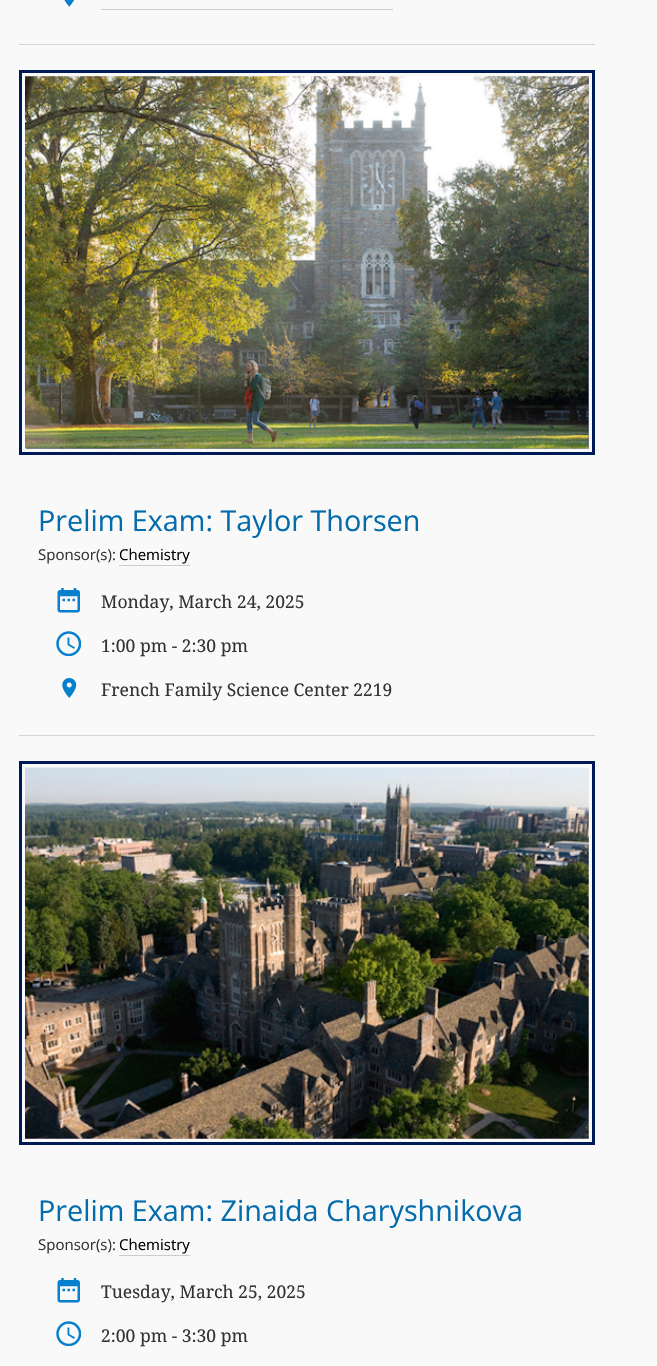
void draw(SkCanvas* canvas) {
	SkPaint paint;
	paint.setAntiAlias(true);
	canvas->clear(0xfff9f9f9);
	paint.setColor(0xffd5d3d3);
	canvas->drawRect(SkRect::MakeXYWH(19, 44, 576, 1), paint);
	canvas->drawImageRect(SkImages::DeferredFromEncodedData(SkData::MakeFromFileName("img1.png")), SkRect::MakeXYWH(64, 0, 10, 7), SkSamplingOptions());
	paint.setColor(0xffcccccc);
	canvas->drawRect(SkRect::MakeXYWH(101, 9, 292, 1), paint);
	paint.setColor(0xffd5d3d3);
	canvas->drawRect(SkRect::MakeXYWH(19, 735, 576, 1), paint);
	paint.setStroke(true);
	paint.setStrokeWidth(3);
	paint.setColor(0xff001a57);
	canvas->drawRect(SkRect::MakeXYWH(20.5, 71.5, 573, 382), paint);
	canvas->drawImageRect(SkImages::DeferredFromEncodedData(SkData::MakeFromFileName("img2.png")), SkRect::MakeXYWH(25, 76, 564, 373), SkSamplingOptions());
	SkFont f1(fontMgr->matchFamilyStyle("Open Sans", SkFontStyle::Normal()), 28.75);
	f1.setSubpixel(true);
	paint.setStroke(false);
	paint.setColor(0xff056cac);
	canvas->drawString("Prelim Exam: Taylor Thorsen", 38, 531, f1, paint);
	SkFont f2(fontMgr->matchFamilyStyle("Open Sans", SkFontStyle::Normal()), 15);
	f2.setSubpixel(true);
	paint.setColor(0xff333333);
	canvas->drawString("Sponsor(s):", 38, 560, f2, paint);
	paint.setColor(0xff000000);
	canvas->drawString("Chemistry", 119, 560, f2, paint);
	paint.setColor(0xffcccccc);
	canvas->drawRect(SkRect::MakeXYWH(119, 565, 71, 1), paint);
	canvas->drawImageRect(SkImages::DeferredFromEncodedData(SkData::MakeFromFileName("img3.png")), SkRect::MakeXYWH(57, 588, 23, 25), SkSamplingOptions());
	SkFont f3(fontMgr->matchFamilyStyle("Droid Serif", SkFontStyle::Normal()), 17.5);
	f3.setSubpixel(true);
	paint.setColor(0xff333333);
	canvas->drawString("Monday, March 24, 2025", 101, 608, f3, paint);
	canvas->drawImageRect(SkImages::DeferredFromEncodedData(SkData::MakeFromFileName("img4.png")), SkRect::MakeXYWH(56, 631, 25, 25), SkSamplingOptions());
	canvas->drawString("1:00 pm - 2:30 pm", 101, 652, f3, paint);
	canvas->drawImageRect(SkImages::DeferredFromEncodedData(SkData::MakeFromFileName("img5.png")), SkRect::MakeXYWH(62, 678, 15, 20), SkSamplingOptions());
	canvas->drawString("French Family Science Center 2219", 101, 696, f3, paint);
	paint.setStroke(true);
	paint.setColor(0xff001a57);
	canvas->drawRect(SkRect::MakeXYWH(20.5, 762.5, 573, 381), paint);
	canvas->drawImageRect(SkImages::DeferredFromEncodedData(SkData::MakeFromFileName("img6.png")), SkRect::MakeXYWH(25, 767, 564, 372), SkSamplingOptions());
	paint.setStroke(false);
	paint.setColor(0xff056cac);
	canvas->drawString("Prelim Exam: Zinaida Charyshnikova", 38, 1221, f1, paint);
	paint.setColor(0xff333333);
	canvas->drawString("Sponsor(s):", 38, 1250, f2, paint);
	paint.setColor(0xff000000);
	canvas->drawString("Chemistry", 119, 1250, f2, paint);
	paint.setColor(0xffcccccc);
	canvas->drawRect(SkRect::MakeXYWH(119, 1255, 71, 1), paint);
	canvas->drawImageRect(SkImages::DeferredFromEncodedData(SkData::MakeFromFileName("img3.png")), SkRect::MakeXYWH(57, 1278, 23, 25), SkSamplingOptions());
	paint.setColor(0xff333333);
	canvas->drawString("Tuesday, March 25, 2025", 101, 1298, f3, paint);
	canvas->drawImageRect(SkImages::DeferredFromEncodedData(SkData::MakeFromFileName("img4.png")), SkRect::MakeXYWH(56, 1321, 25, 25), SkSamplingOptions());
	canvas->drawString("2:00 pm - 3:30 pm", 101, 1342, f3, paint);
}
